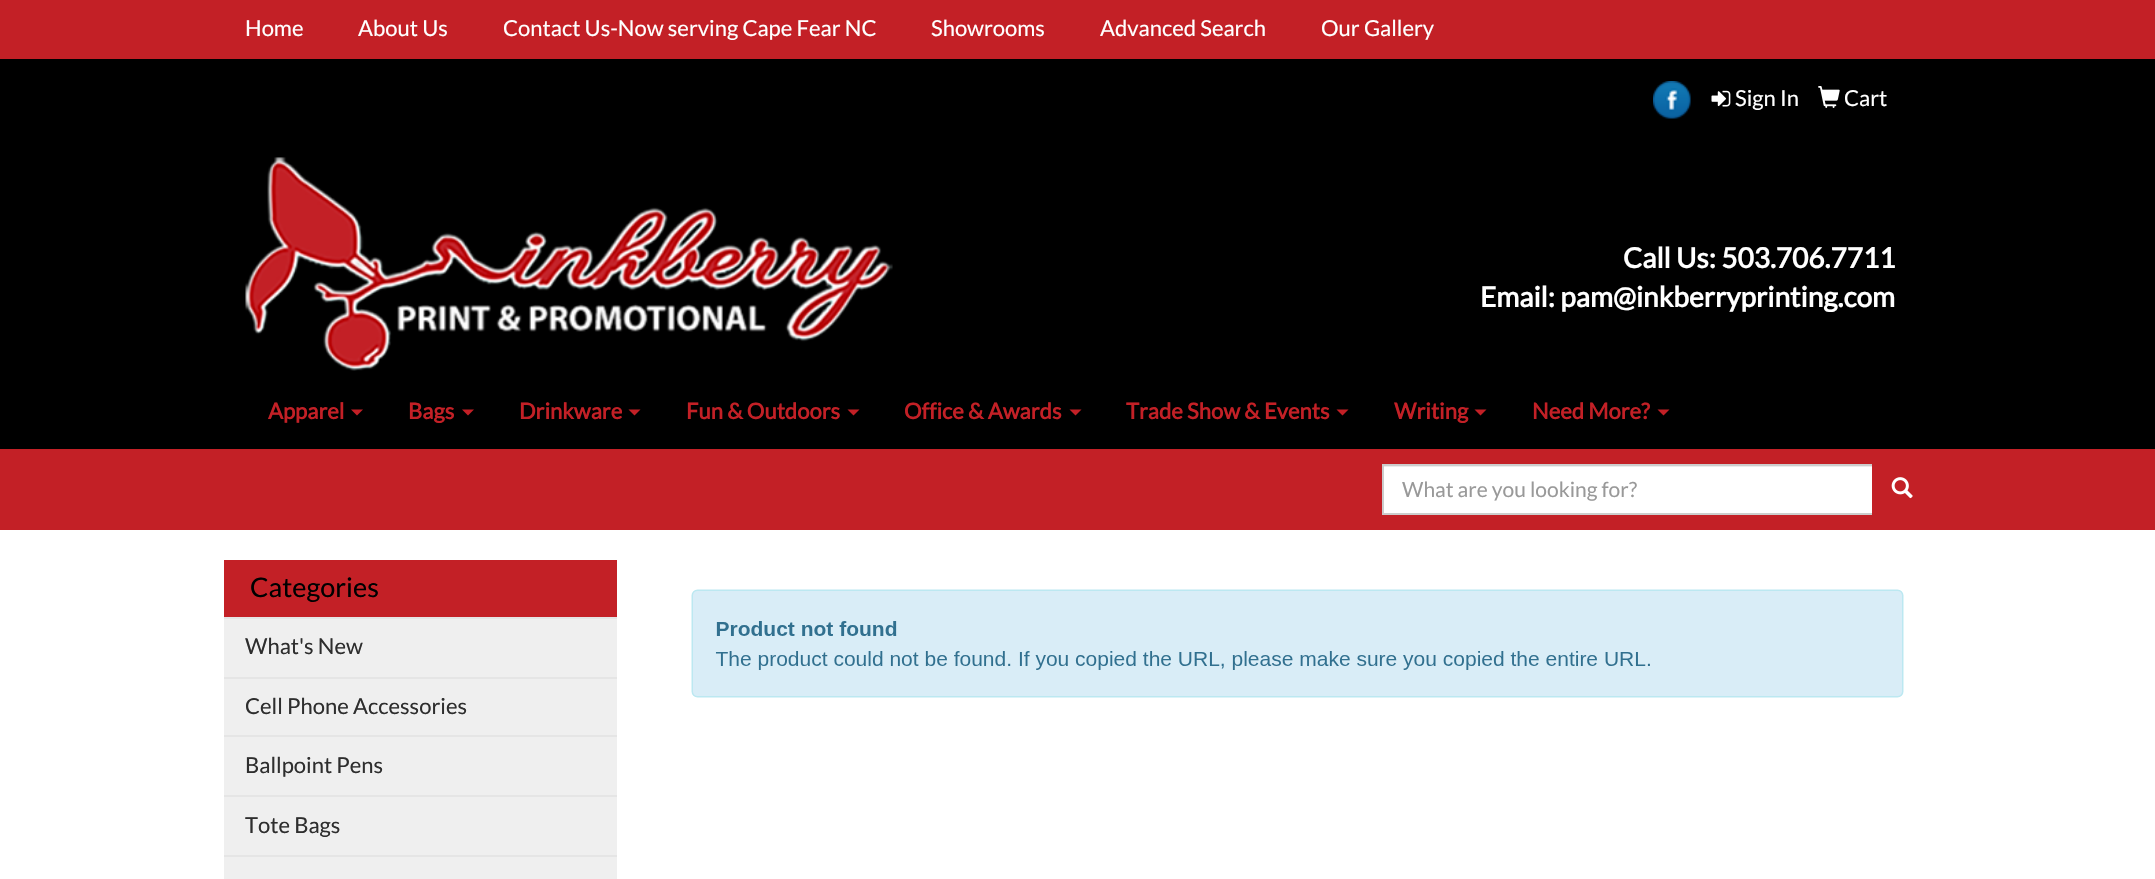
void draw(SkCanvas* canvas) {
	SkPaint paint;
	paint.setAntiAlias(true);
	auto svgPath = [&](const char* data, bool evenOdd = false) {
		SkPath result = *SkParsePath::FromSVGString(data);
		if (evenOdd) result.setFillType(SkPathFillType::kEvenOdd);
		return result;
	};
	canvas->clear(0xff000000);
	paint.setColor(0xffc32026);
	canvas->drawRect(SkRect::MakeXYWH(0, 0, 2155, 59), paint);
	SkFont f1(fontMgr->matchFamilyStyle("Lato", SkFontStyle::Normal()), 22);
	f1.setSubpixel(true);
	paint.setColor(0xffffffff);
	canvas->drawString("Home", 245, 36, f1, paint);
	canvas->drawString("About Us", 358, 36, f1, paint);
	canvas->drawString("Contact Us-Now serving Cape Fear NC", 503, 36, f1, paint);
	canvas->drawString("Showrooms", 931, 36, f1, paint);
	canvas->drawString("Advanced Search", 1100, 36, f1, paint);
	canvas->drawString("Our Gallery", 1321, 36, f1, paint);
	canvas->drawImageRect(SkImages::DeferredFromEncodedData(SkData::MakeFromFileName("img1.png")), SkRect::MakeXYWH(245, 157, 648, 214), SkSamplingOptions());
	canvas->drawImageRect(SkImages::DeferredFromEncodedData(SkData::MakeFromFileName("img2.png")), SkRect::MakeXYWH(1653, 81, 38, 38), SkSamplingOptions());
	canvas->drawImageRect(SkImages::DeferredFromEncodedData(SkData::MakeFromFileName("img3.png")), SkRect::MakeXYWH(1711, 90, 20, 17), SkSamplingOptions());
	canvas->drawString("Sign In", 1735, 106, f1, paint);
	canvas->drawImageRect(SkImages::DeferredFromEncodedData(SkData::MakeFromFileName("img4.png")), SkRect::MakeXYWH(1818, 86, 22, 22), SkSamplingOptions());
	canvas->drawString("Cart", 1844, 106, f1, paint);
	SkFont f2(fontMgr->matchFamilyStyle("Lato", SkFontStyle::Bold()), 28);
	f2.setSubpixel(true);
	canvas->drawString("Call Us: 503.706.7711", 1623, 268, f2, paint);
	canvas->drawString("Email: pam@inkberryprinting.com", 1480, 307, f2, paint);
	SkFont f3(fontMgr->matchFamilyStyle("Lato", SkFontStyle::Bold()), 22);
	f3.setSubpixel(true);
	paint.setColor(0xffc32026);
	canvas->drawString("Apparel", 268, 419, f3, paint);
	canvas->drawPath(svgPath("M351 409.5H363L357 415.5Z"), paint);
	canvas->drawString("Bags", 408, 419, f3, paint);
	canvas->drawPath(svgPath("M462 409.5H474L468 415.5Z"), paint);
	canvas->drawString("Drinkware", 519, 419, f3, paint);
	canvas->drawPath(svgPath("M628.5 409.5H640.5L634.5 415.5Z"), paint);
	canvas->drawString("Fun & Outdoors", 686, 419, f3, paint);
	canvas->drawPath(svgPath("M847.5 409.5H859.5L853.5 415.5Z"), paint);
	canvas->drawString("Office & Awards", 904, 419, f3, paint);
	canvas->drawPath(svgPath("M1069.5 409.5H1081.5L1075.5 415.5Z"), paint);
	canvas->drawString("Trade Show & Events", 1126, 419, f3, paint);
	canvas->drawPath(svgPath("M1336.5 409.5H1348.5L1342.5 415.5Z"), paint);
	canvas->drawString("Writing", 1394, 419, f3, paint);
	canvas->drawPath(svgPath("M1474.5 409.5H1486.5L1480.5 415.5Z"), paint);
	canvas->drawString("Need More?", 1532, 419, f3, paint);
	canvas->drawPath(svgPath("M1657.5 409.5H1669.5L1663.5 415.5Z"), paint);
	canvas->drawRect(SkRect::MakeXYWH(0, 449, 2155, 81), paint);
	paint.setColor(0xffffffff);
	canvas->drawRect(SkRect::MakeXYWH(1384, 467, 488, 46), paint);
	paint.setColor(0xffececec);
	canvas->drawRect(SkRect::MakeXYWH(1383, 466, 489, 1), paint);
	paint.setStroke(true);
	paint.setStrokeWidth(2);
	paint.setColor(0xffcccccc);
	canvas->drawRect(SkRect::MakeXYWH(1383, 465, 490, 49), paint);
	SkFont f4(fontMgr->matchFamilyStyle("Lato", SkFontStyle::Normal()), 21);
	f4.setSubpixel(true);
	paint.setStroke(false);
	paint.setColor(0xff999999);
	canvas->drawString("What are you looking for?", 1402, 497, f4, paint);
	paint.setColor(0xffc32026);
	canvas->drawPath(svgPath("M1872 464H1928C1931.5 464 1934 466.5 1934 470V509C1934 512.5 1931.5 515 1928 515H1872Z"), paint);
	canvas->drawImageRect(SkImages::DeferredFromEncodedData(SkData::MakeFromFileName("img5.png")), SkRect::MakeXYWH(1891, 477, 22, 22), SkSamplingOptions());
	paint.setColor(0xffffffff);
	canvas->drawRect(SkRect::MakeXYWH(0, 530, 2155, 349), paint);
	paint.setColor(0xffc32026);
	canvas->drawRect(SkRect::MakeXYWH(224, 560, 393, 57), paint);
	SkFont f5(fontMgr->matchFamilyStyle("Lato", SkFontStyle::Normal()), 27);
	f5.setSubpixel(true);
	paint.setColor(0xff000000);
	canvas->drawString("Categories", 250, 597, f5, paint);
	paint.setColor(0xffefefef);
	canvas->drawRect(SkRect::MakeXYWH(224, 619, 393, 58), paint);
	paint.setColor(0xffe5e5e5);
	canvas->drawRect(SkRect::MakeXYWH(224, 617, 393, 2), paint);
	paint.setColor(0xff2e2e2e);
	canvas->drawString("What's New", 245, 654, f1, paint);
	paint.setColor(0xffefefef);
	canvas->drawRect(SkRect::MakeXYWH(224, 679, 393, 56), paint);
	paint.setColor(0xffe5e5e5);
	canvas->drawRect(SkRect::MakeXYWH(224, 677, 393, 2), paint);
	paint.setColor(0xff2e2e2e);
	canvas->drawString("Cell Phone Accessories", 245, 714, f1, paint);
	paint.setColor(0xffefefef);
	canvas->drawRect(SkRect::MakeXYWH(224, 737, 393, 58), paint);
	paint.setColor(0xffe5e5e5);
	canvas->drawRect(SkRect::MakeXYWH(224, 735, 393, 2), paint);
	paint.setColor(0xff2e2e2e);
	canvas->drawString("Ballpoint Pens", 245, 773, f1, paint);
	paint.setColor(0xffefefef);
	canvas->drawRect(SkRect::MakeXYWH(224, 797, 393, 58), paint);
	paint.setColor(0xffe5e5e5);
	canvas->drawRect(SkRect::MakeXYWH(224, 795, 393, 2), paint);
	paint.setColor(0xff2e2e2e);
	canvas->drawString("Tote Bags", 245, 833, f1, paint);
	paint.setColor(0xffefefef);
	canvas->drawRect(SkRect::MakeXYWH(224, 857, 393, 22), paint);
	paint.setColor(0xffe5e5e5);
	canvas->drawRect(SkRect::MakeXYWH(224, 855, 393, 2), paint);
	canvas->drawImageRect(SkImages::DeferredFromEncodedData(SkData::MakeFromFileName("img6.png")), SkRect::MakeXYWH(691, 589, 1213, 109), SkSamplingOptions());
}
